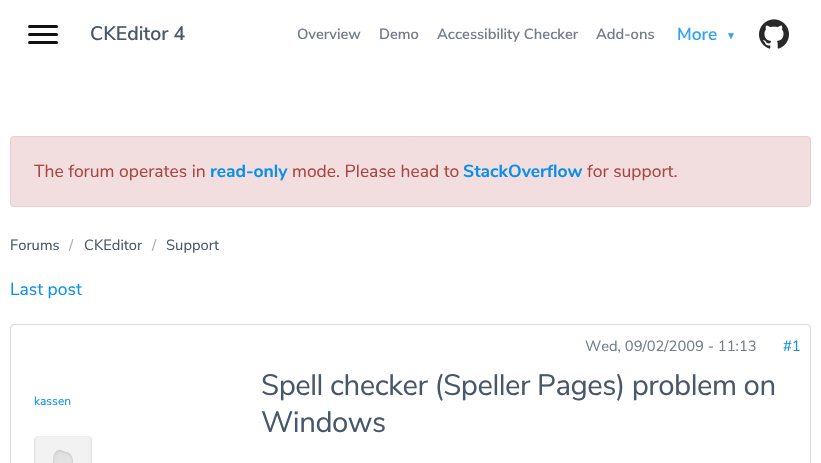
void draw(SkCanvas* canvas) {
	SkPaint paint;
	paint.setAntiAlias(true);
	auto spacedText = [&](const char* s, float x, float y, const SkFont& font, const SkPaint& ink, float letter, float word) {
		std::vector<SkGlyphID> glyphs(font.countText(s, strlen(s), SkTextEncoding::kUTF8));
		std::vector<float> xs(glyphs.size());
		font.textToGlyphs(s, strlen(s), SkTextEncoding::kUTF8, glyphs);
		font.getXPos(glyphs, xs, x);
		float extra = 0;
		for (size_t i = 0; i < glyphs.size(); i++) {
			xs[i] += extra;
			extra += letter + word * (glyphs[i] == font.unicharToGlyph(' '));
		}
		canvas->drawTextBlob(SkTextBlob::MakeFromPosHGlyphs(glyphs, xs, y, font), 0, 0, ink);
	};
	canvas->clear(0xffffffff);
	paint.setColor(0xff111111);
	canvas->drawRoundRect(SkRect::MakeXYWH(28, 25, 30, 3), 1.5, 1.5, paint);
	canvas->drawRoundRect(SkRect::MakeXYWH(28, 33, 30, 3), 1.5, 1.5, paint);
	canvas->drawRoundRect(SkRect::MakeXYWH(28, 41, 30, 3), 1.5, 1.5, paint);
	SkFont f1(fontMgr->matchFamilyStyle("Nunito Sans", SkFontStyle(600, SkFontStyle::kNormal_Width, SkFontStyle::kUpright_Slant)), 19.5);
	f1.setSubpixel(true);
	paint.setColor(0xff48586c);
	canvas->drawString("CKEditor 4", 90, 40, f1, paint);
	SkFont f2(fontMgr->matchFamilyStyle("Nunito Sans", SkFontStyle(600, SkFontStyle::kNormal_Width, SkFontStyle::kUpright_Slant)), 14.75);
	f2.setSubpixel(true);
	paint.setColor(0xff707d8c);
	canvas->drawString("Overview", 297, 39, f2, paint);
	canvas->drawString("Demo", 379, 39, f2, paint);
	canvas->drawString("Accessibility Checker", 437, 39, f2, paint);
	canvas->drawString("Add-ons", 596, 39, f2, paint);
	SkFont f3(fontMgr->matchFamilyStyle("Nunito Sans", SkFontStyle(600, SkFontStyle::kNormal_Width, SkFontStyle::kUpright_Slant)), 17.5);
	f3.setSubpixel(true);
	paint.setColor(0xff30a3f1);
	canvas->drawString("More", 677, 40, f3, paint);
	SkFont f4(fontMgr->matchFamilyStyle("Liberation Sans", SkFontStyle::Bold()), 10);
	f4.setSubpixel(true);
	canvas->drawString("▼", 726, 39, f4, paint);
	canvas->drawImageRect(SkImages::DeferredFromEncodedData(SkData::MakeFromFileName("img1.png")), SkRect::MakeXYWH(759, 19, 30, 30), SkSamplingOptions());
	paint.setColor(0xfff2dede);
	canvas->drawRoundRect(SkRect::MakeXYWH(10.5, 136.5, 800, 70), 3.5, 3.5, paint);
	paint.setStroke(true);
	paint.setStrokeWidth(1);
	paint.setColor(0xffebccd1);
	canvas->drawRoundRect(SkRect::MakeXYWH(10.5, 136.5, 800, 70), 3.5, 3.5, paint);
	SkFont f5(fontMgr->matchFamilyStyle("Nunito Sans", SkFontStyle::Normal()), 17.5);
	f5.setSubpixel(true);
	paint.setStroke(false);
	paint.setColor(0xffa94442);
	canvas->drawString("The forum operates in", 34, 177, f5, paint);
	SkFont f6(fontMgr->matchFamilyStyle("Nunito Sans", SkFontStyle::Bold()), 17.5);
	f6.setSubpixel(true);
	paint.setColor(0xff0a90eb);
	canvas->drawString("read-only", 210, 177, f6, paint);
	paint.setColor(0xffa94442);
	canvas->drawString("mode. Please head to", 292, 177, f5, paint);
	paint.setColor(0xff0a90eb);
	canvas->drawString("StackOverflow", 463, 177, f6, paint);
	paint.setColor(0xffa94442);
	canvas->drawString("for support.", 587, 177, f5, paint);
	SkFont f7(fontMgr->matchFamilyStyle("Nunito Sans", SkFontStyle::Normal()), 14.75);
	f7.setSubpixel(true);
	paint.setColor(0xff48586c);
	canvas->drawString("Forums", 10, 250, f7, paint);
	paint.setColor(0xffa3abb6);
	canvas->drawString("/", 69, 250, f7, paint);
	paint.setColor(0xff48586c);
	canvas->drawString("CKEditor", 84, 250, f7, paint);
	paint.setColor(0xffa3abb6);
	canvas->drawString("/", 152, 250, f7, paint);
	paint.setColor(0xff48586c);
	canvas->drawString("Support", 166, 250, f7, paint);
	paint.setColor(0xff0a90eb);
	canvas->drawString("Last post", 10, 295, f5, paint);
	paint.setStroke(true);
	paint.setColor(0x26000000);
	canvas->drawRoundRect(SkRect::MakeXYWH(10.5, 324.5, 800, 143), 3.5, 3.5, paint);
	paint.setStroke(false);
	paint.setColor(0xff707d8c);
	canvas->drawString("Wed, 09/02/2009 - 11:13", 585, 351, f7, paint);
	paint.setColor(0xff0a90eb);
	canvas->drawString("#1", 783, 351, f7, paint);
	SkFont f8(fontMgr->matchFamilyStyle("Nunito Sans", SkFontStyle::Normal()), 12);
	f8.setSubpixel(true);
	canvas->drawString("kassen", 34, 405, f8, paint);
	canvas->drawImageRect(SkImages::DeferredFromEncodedData(SkData::MakeFromFileName("img2.png")), SkRect::MakeXYWH(34, 436, 58, 27), SkSamplingOptions());
	SkFont f9(fontMgr->matchFamilyStyle("Nunito Sans", SkFontStyle::Normal()), 29.4);
	f9.setSubpixel(true);
	paint.setColor(0xff48586c);
	spacedText("Spell checker (Speller Pages) problem on", 261, 395, f9, paint, -0.5, 0);
	spacedText("Windows", 261, 432, f9, paint, -0.5, 0);
}
